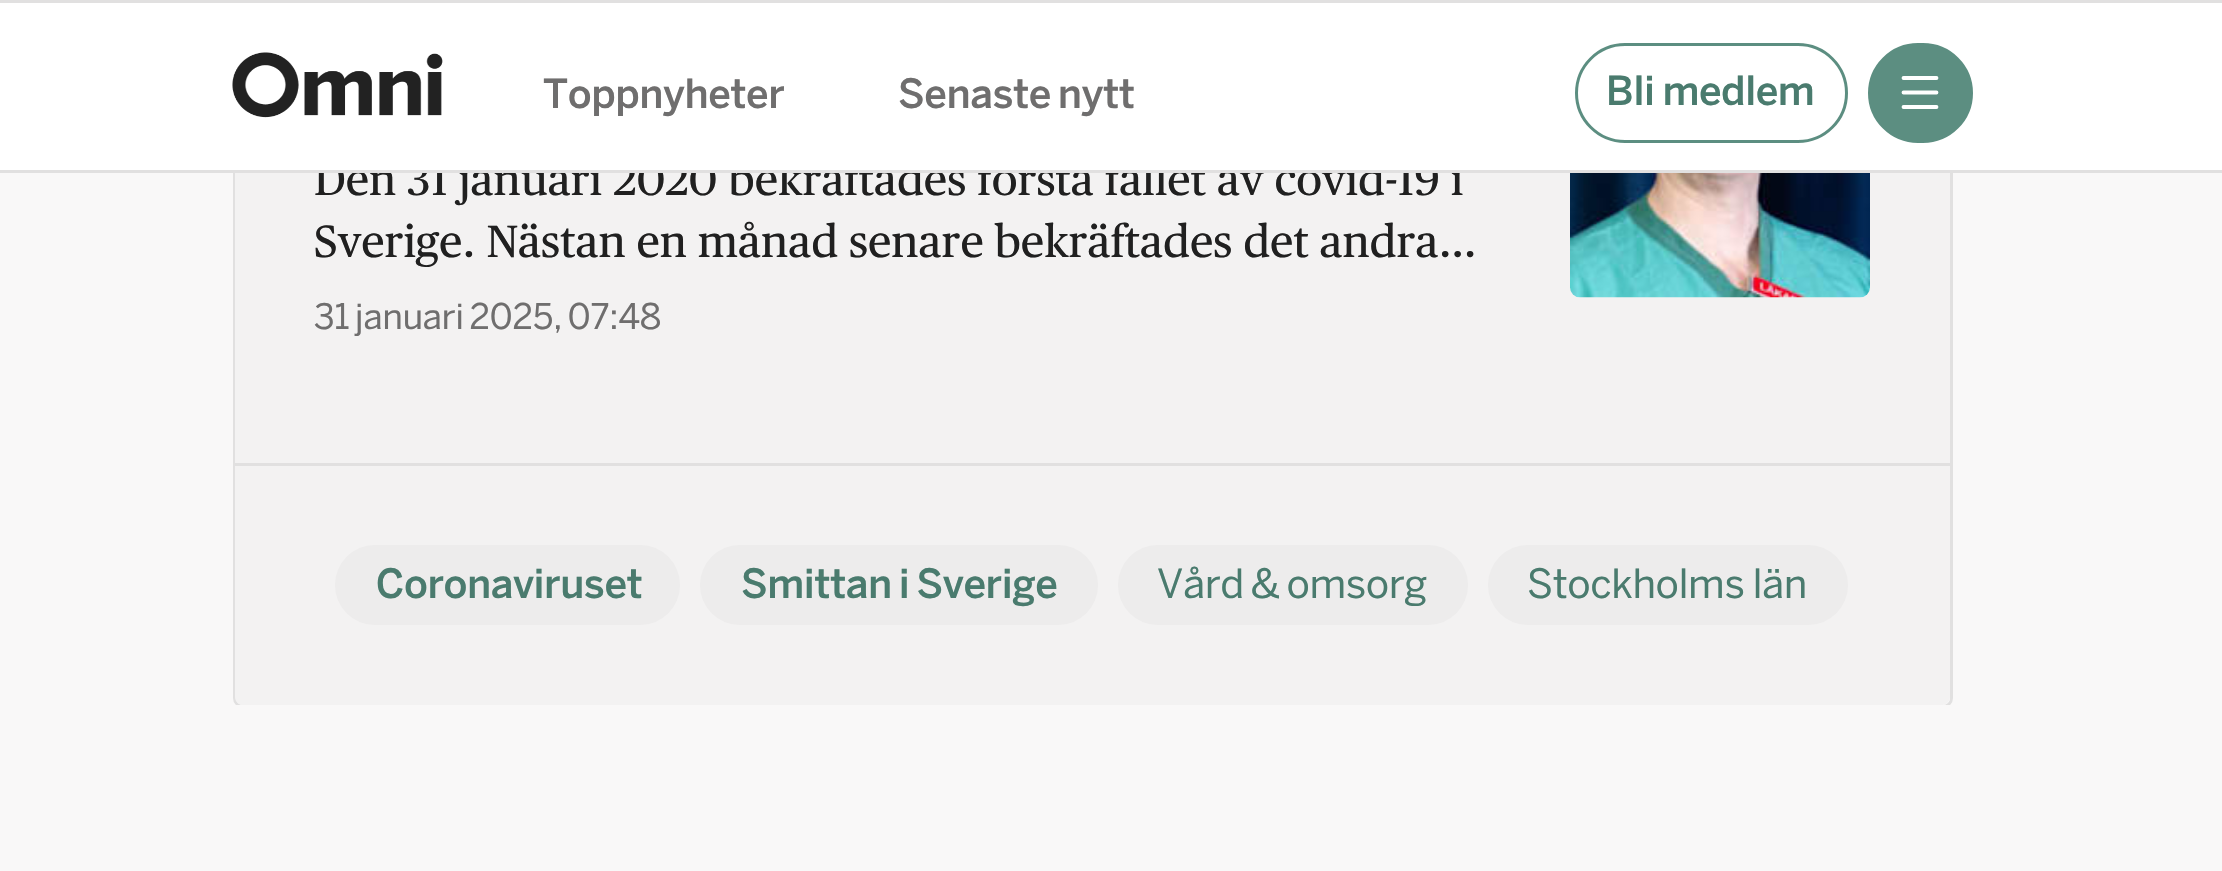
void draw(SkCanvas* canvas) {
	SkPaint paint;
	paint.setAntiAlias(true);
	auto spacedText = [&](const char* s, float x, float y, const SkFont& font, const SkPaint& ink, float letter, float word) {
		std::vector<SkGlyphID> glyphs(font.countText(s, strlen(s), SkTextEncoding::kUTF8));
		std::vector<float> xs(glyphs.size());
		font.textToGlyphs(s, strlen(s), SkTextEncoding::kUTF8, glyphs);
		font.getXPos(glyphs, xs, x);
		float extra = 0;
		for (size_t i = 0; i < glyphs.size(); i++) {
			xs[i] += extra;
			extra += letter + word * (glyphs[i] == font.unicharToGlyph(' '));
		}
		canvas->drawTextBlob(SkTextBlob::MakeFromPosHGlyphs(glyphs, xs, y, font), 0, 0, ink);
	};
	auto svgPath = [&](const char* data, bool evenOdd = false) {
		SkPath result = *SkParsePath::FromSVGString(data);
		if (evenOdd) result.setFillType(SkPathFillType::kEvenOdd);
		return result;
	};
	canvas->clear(0xfff9f8f8);
	paint.setColor(0xffffffff);
	canvas->drawRoundRect(SkRect::MakeXYWH(234.5, -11.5, 1717, 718), 8.5, 8.5, paint);
	paint.setStroke(true);
	paint.setStrokeWidth(3);
	paint.setColor(0xffe1e0e0);
	canvas->drawRoundRect(SkRect::MakeXYWH(234.5, -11.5, 1717, 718), 8.5, 8.5, paint);
	paint.setStroke(false);
	paint.setColor(0xfff3f2f2);
	canvas->drawRect(SkRect::MakeXYWH(235, 173, 1715, 290), paint);
	SkFont f1(fontMgr->matchFamilyStyle("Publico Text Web", SkFontStyle::Normal()), 45);
	f1.setSubpixel(true);
	paint.setColor(0xff202020);
	spacedText("Den 31 januari 2020 bekräftades första fallet av covid-19 i", 314, 195, f1, paint, 0, -0.25);
	paint.setColor(0xffffffff);
	canvas->drawRect(SkRect::MakeXYWH(0, 3, 2222, 167), paint);
	paint.setColor(0xffe1e0e0);
	canvas->drawRect(SkRect::MakeXYWH(0, 0, 2222, 3), paint);
	canvas->drawRect(SkRect::MakeXYWH(0, 170, 2222, 3), paint);
	canvas->drawImageRect(SkImages::DeferredFromEncodedData(SkData::MakeFromFileName("img1.png")), SkRect::MakeXYWH(232, 52, 211, 66), SkSamplingOptions());
	SkFont f2(fontMgr->matchFamilyStyle("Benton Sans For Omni", SkFontStyle(500, SkFontStyle::kNormal_Width, SkFontStyle::kUpright_Slant)), 40);
	f2.setSubpixel(true);
	paint.setColor(0xff6f6e6e);
	canvas->drawString("Toppnyheter", 543, 108, f2, paint);
	spacedText("Senaste nytt", 898, 108, f2, paint, 0, -1);
	paint.setStroke(true);
	paint.setColor(0xff5c8e81);
	canvas->drawRoundRect(SkRect::MakeXYWH(1576.5, 44.5, 270, 97), 48.5, 48.5, paint);
	paint.setStroke(false);
	paint.setColor(0xff4a7b6e);
	canvas->drawString("Bli medlem", 1606, 105, f2, paint);
	paint.setColor(0xff5c8e81);
	canvas->drawRoundRect(SkRect::MakeXYWH(1869.5, 44.5, 102, 97), 48.5, 48.5, paint);
	paint.setStroke(true);
	canvas->drawRoundRect(SkRect::MakeXYWH(1869.5, 44.5, 102, 97), 48.5, 48.5, paint);
	paint.setStrokeWidth(3.8);
	paint.setStrokeCap(SkPaint::kRound_Cap);
	paint.setStrokeJoin(SkPaint::kRound_Join);
	paint.setColor(0xffffffff);
	canvas->drawPath(svgPath("M1903.5 78H1936.5M1903.5 92.5H1936.5M1903.5 107H1936.5"), paint);
	paint.setStroke(false);
	paint.setColor(0xff202020);
	spacedText("Sverige. Nästan en månad senare bekräftades det andra…", 314, 257, f1, paint, 0, -0.5);
	SkFont f3(fontMgr->matchFamilyStyle("Benton Sans For Omni", SkFontStyle::Normal()), 35);
	f3.setSubpixel(true);
	paint.setColor(0xff6f6e6e);
	spacedText("31 januari 2025, 07:48", 314, 329, f3, paint, 0, -1.5);
	canvas->drawImageRect(SkImages::DeferredFromEncodedData(SkData::MakeFromFileName("img2.png")), SkRect::MakeXYWH(1570, 173, 300, 125), SkSamplingOptions());
	paint.setColor(0xfff3f2f2);
	canvas->drawPath(svgPath("M235 465H1950V697C1950 701.5 1946.5 705 1942 705H243C238.5 705 235 701.5 235 697Z"), paint);
	paint.setColor(0xffe1e0e0);
	canvas->drawRect(SkRect::MakeXYWH(235, 463, 1715, 3), paint);
	paint.setColor(0xffedecec);
	canvas->drawRoundRect(SkRect::MakeXYWH(335, 545, 345, 80), 40, 40, paint);
	paint.setColor(0xff4a7b6e);
	canvas->drawString("Coronaviruset", 376, 598, f2, paint);
	paint.setColor(0xffedecec);
	canvas->drawRoundRect(SkRect::MakeXYWH(700, 545, 398, 80), 40, 40, paint);
	paint.setColor(0xff4a7b6e);
	spacedText("Smittan i Sverige", 741, 598, f2, paint, 0, -1);
	paint.setColor(0xffedecec);
	canvas->drawRoundRect(SkRect::MakeXYWH(1118, 545, 350, 80), 40, 40, paint);
	SkFont f4(fontMgr->matchFamilyStyle("Benton Sans For Omni", SkFontStyle::Normal()), 40);
	f4.setSubpixel(true);
	paint.setColor(0xff4a7b6e);
	spacedText("Vård & omsorg", 1157, 598, f4, paint, 0, -1);
	paint.setColor(0xffedecec);
	canvas->drawRoundRect(SkRect::MakeXYWH(1488, 545, 360, 80), 40, 40, paint);
	paint.setColor(0xff4a7b6e);
	canvas->drawString("Stockholms län", 1527, 598, f4, paint);
	paint.setColor(0xfff9f8f8);
	canvas->drawRect(SkRect::MakeXYWH(236, 705, 1714, 3), paint);
}
